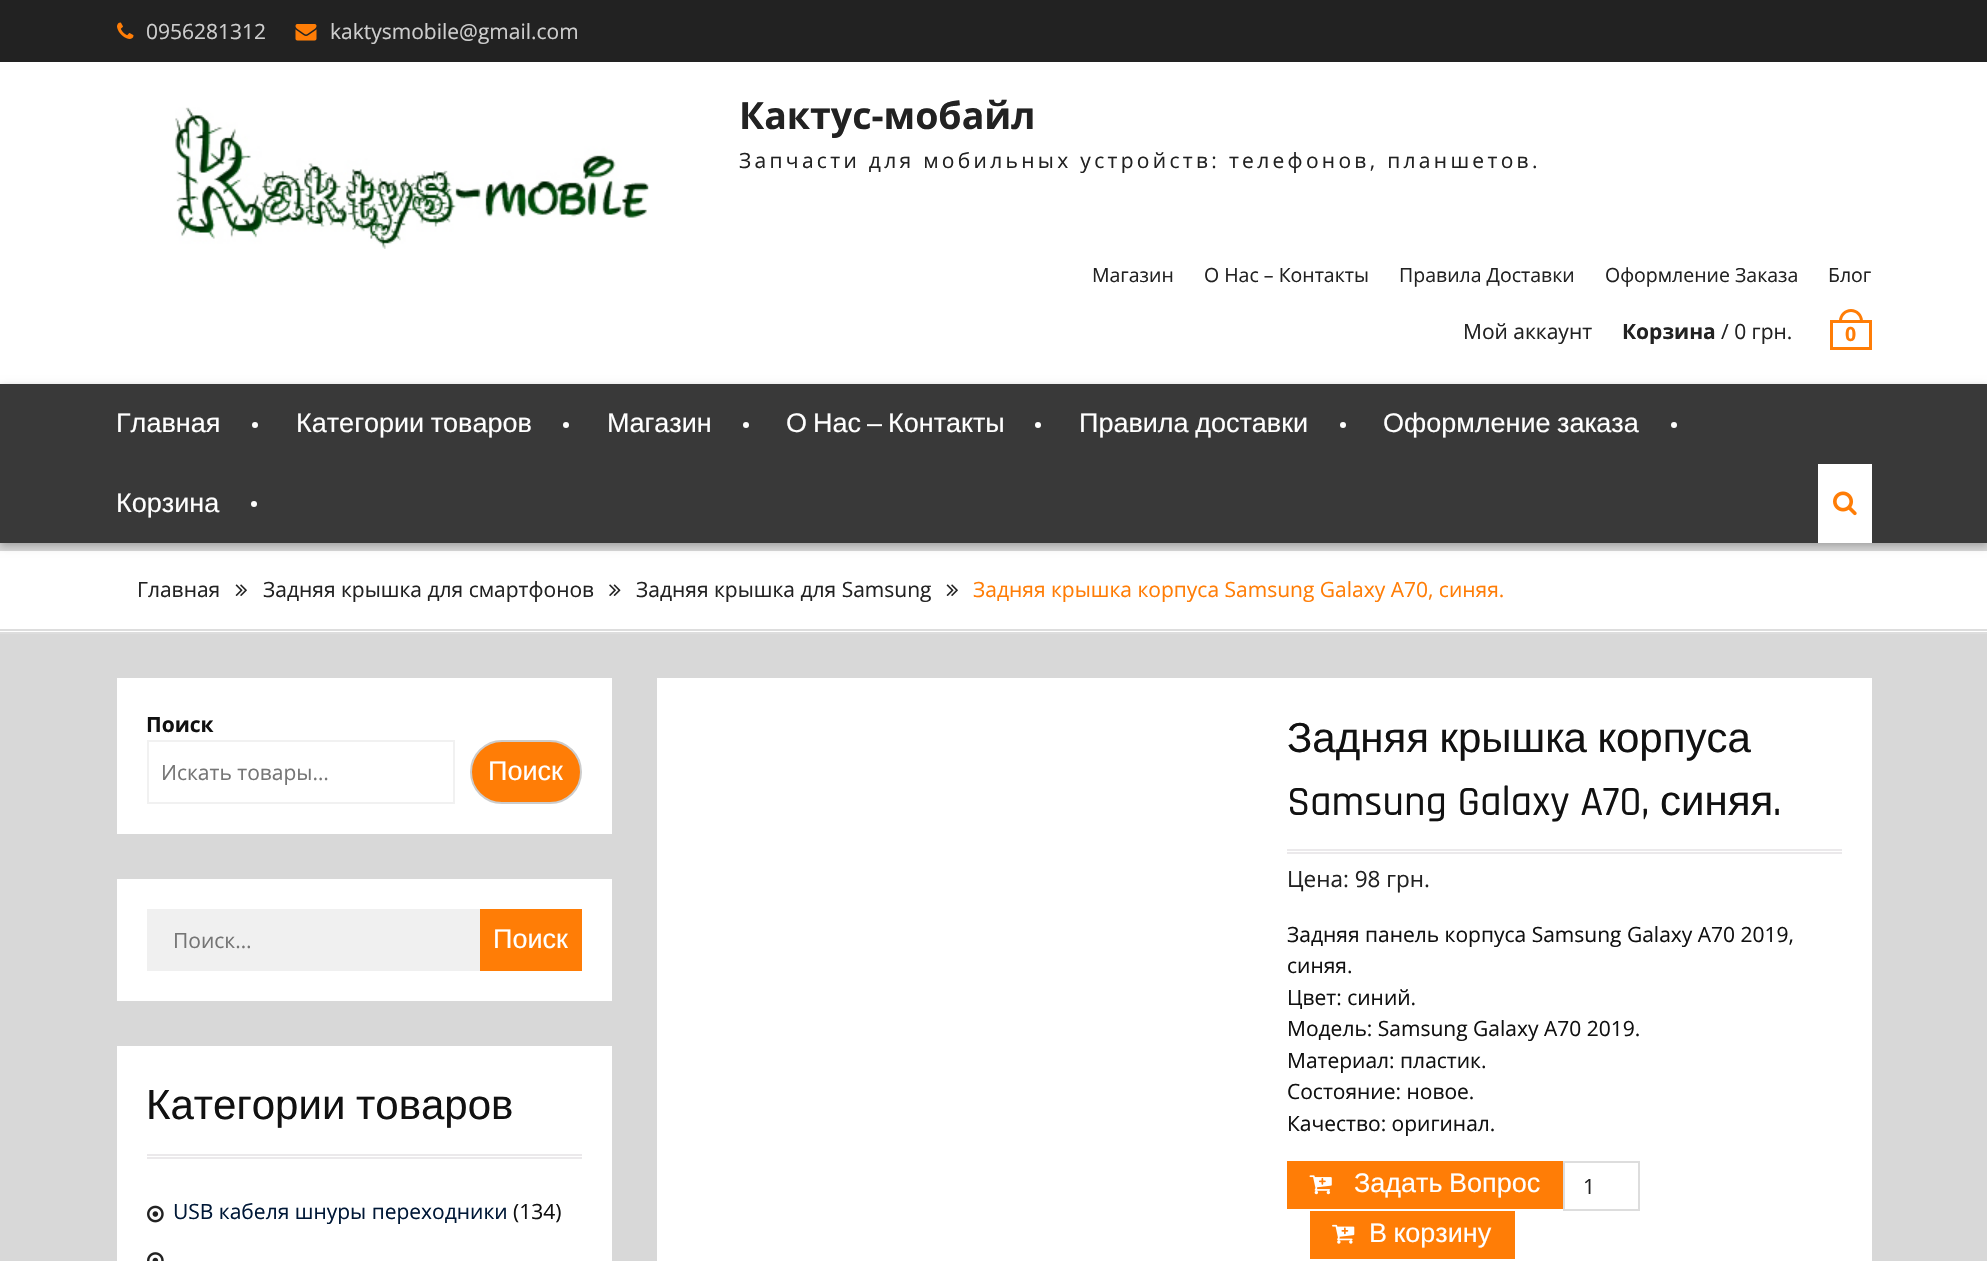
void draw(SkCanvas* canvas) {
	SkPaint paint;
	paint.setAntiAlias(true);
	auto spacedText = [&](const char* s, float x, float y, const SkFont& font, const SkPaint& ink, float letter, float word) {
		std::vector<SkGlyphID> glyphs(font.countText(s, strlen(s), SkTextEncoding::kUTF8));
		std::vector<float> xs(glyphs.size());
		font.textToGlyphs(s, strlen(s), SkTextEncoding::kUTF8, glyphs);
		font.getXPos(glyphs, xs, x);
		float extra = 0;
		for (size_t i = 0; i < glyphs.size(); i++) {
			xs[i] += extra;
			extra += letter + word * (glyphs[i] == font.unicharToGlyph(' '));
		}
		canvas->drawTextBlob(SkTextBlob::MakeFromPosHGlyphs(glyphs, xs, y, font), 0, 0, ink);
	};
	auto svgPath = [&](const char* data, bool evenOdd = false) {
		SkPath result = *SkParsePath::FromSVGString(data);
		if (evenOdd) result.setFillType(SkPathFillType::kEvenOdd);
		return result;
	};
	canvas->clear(0xffd8d8d8);
	paint.setColor(0xff222222);
	canvas->drawRect(SkRect::MakeXYWH(0, 0, 1987, 62), paint);
	canvas->drawImageRect(SkImages::DeferredFromEncodedData(SkData::MakeFromFileName("img1.png")), SkRect::MakeXYWH(117, 22, 17, 17), SkSamplingOptions());
	SkFont f1(fontMgr->matchFamilyStyle("Open Sans", SkFontStyle::Normal()), 21);
	f1.setSubpixel(true);
	paint.setColor(0xffcecece);
	canvas->drawString("0956281312", 146, 39, f1, paint);
	canvas->drawImageRect(SkImages::DeferredFromEncodedData(SkData::MakeFromFileName("img2.png")), SkRect::MakeXYWH(295, 24, 22, 17), SkSamplingOptions());
	canvas->drawString("kaktysmobile@gmail.com", 330, 39, f1, paint);
	paint.setColor(0xffffffff);
	canvas->drawRect(SkRect::MakeXYWH(0, 62, 1987, 322), paint);
	canvas->drawImageRect(SkImages::DeferredFromEncodedData(SkData::MakeFromFileName("img3.png")), SkRect::MakeXYWH(175, 107, 474, 142), SkSamplingOptions());
	SkFont f2(fontMgr->matchFamilyStyle("Open Sans", SkFontStyle::Bold()), 37.5);
	f2.setSubpixel(true);
	paint.setColor(0xff222222);
	canvas->drawString("Кактус-мобайл", 739, 129, f2, paint);
	spacedText("Запчасти для мобильных устройств: телефонов, планшетов.", 739, 168, f1, paint, 3.3, 0);
	SkFont f3(fontMgr->matchFamilyStyle("Open Sans", SkFontStyle::Normal()), 19.5);
	f3.setSubpixel(true);
	canvas->drawString("Магазин", 1092, 282, f3, paint);
	canvas->drawString("О Нас – Контакты", 1204, 282, f3, paint);
	canvas->drawString("Правила Доставки", 1399, 282, f3, paint);
	canvas->drawString("Оформление Заказа", 1605, 282, f3, paint);
	canvas->drawString("Блог", 1828, 282, f3, paint);
	canvas->drawString("Мой аккаунт", 1463, 339, f1, paint);
	SkFont f4(fontMgr->matchFamilyStyle("Open Sans", SkFontStyle::Bold()), 21);
	f4.setSubpixel(true);
	canvas->drawString("Корзина", 1622, 339, f4, paint);
	canvas->drawString("/ 0 грн.", 1721, 339, f1, paint);
	paint.setColor(0xffff7d06);
	canvas->drawPath(svgPath("M1851 309C1857.5 309 1863 314.5 1863 321H1839C1839 314.5 1844.5 309 1851 309ZM1851 312C1856 312 1860 316 1860 321H1842C1842 316 1846 312 1851 312Z", true), paint);
	paint.setStroke(true);
	paint.setStrokeWidth(3);
	canvas->drawRect(SkRect::MakeXYWH(1831.5, 321.5, 39, 27), paint);
	SkFont f5(fontMgr->matchFamilyStyle("Open Sans", SkFontStyle::Bold()), 19.5);
	f5.setSubpixel(true);
	paint.setStroke(false);
	canvas->drawString("0", 1845, 341, f5, paint);
	paint.setColor(0xffffffff);
	canvas->drawRect(SkRect::MakeXYWH(0, 551, 1987, 81), paint);
	paint.setColor(0x42000000);
	paint.setMaskFilter(SkMaskFilter::MakeBlur(kNormal_SkBlurStyle, 4));
	canvas->drawRect(SkRect::MakeXYWH(0, 387, 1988, 159), paint);
	paint.setMaskFilter(nullptr);
	paint.setColor(0xff393939);
	canvas->drawRect(SkRect::MakeXYWH(0, 384, 1987, 159), paint);
	SkFont f6(fontMgr->matchFamilyStyle("Liberation Sans", SkFontStyle::Normal()), 27);
	f6.setSubpixel(true);
	paint.setColor(0xffffffff);
	canvas->drawString("Главная", 116, 432, f6, paint);
	canvas->drawCircle(255, 425, 3, paint);
	spacedText("Категории товаров", 296, 432, f6, paint, 0, -1);
	canvas->drawCircle(566, 425, 3, paint);
	canvas->drawString("Магазин", 607, 432, f6, paint);
	canvas->drawCircle(746, 425, 3, paint);
	spacedText("О Нас – Контакты", 786, 432, f6, paint, 0, -1.5);
	canvas->drawCircle(1038, 425, 3, paint);
	spacedText("Правила доставки", 1079, 432, f6, paint, 0, -1);
	canvas->drawCircle(1343, 425, 3, paint);
	spacedText("Оформление заказа", 1383, 432, f6, paint, 0, -1);
	canvas->drawCircle(1674, 425, 3, paint);
	canvas->drawString("Корзина", 116, 512, f6, paint);
	canvas->drawCircle(254, 504, 3, paint);
	canvas->drawRect(SkRect::MakeXYWH(1818, 464, 54, 79), paint);
	canvas->drawImageRect(SkImages::DeferredFromEncodedData(SkData::MakeFromFileName("img4.png")), SkRect::MakeXYWH(1833, 491, 24, 25), SkSamplingOptions());
	paint.setColor(0xffdddddd);
	canvas->drawRect(SkRect::MakeXYWH(0, 629, 1987, 2), paint);
	canvas->drawRect(SkRect::MakeXYWH(0, 632, 1987, 2), paint);
	paint.setColor(0xff222222);
	canvas->drawString("Главная", 137, 597, f1, paint);
	canvas->drawImageRect(SkImages::DeferredFromEncodedData(SkData::MakeFromFileName("img5.png")), SkRect::MakeXYWH(235, 584, 12, 12), SkSamplingOptions());
	canvas->drawString("Задняя крышка для смартфонов", 263, 597, f1, paint);
	canvas->drawImageRect(SkImages::DeferredFromEncodedData(SkData::MakeFromFileName("img6.png")), SkRect::MakeXYWH(609, 584, 12, 12), SkSamplingOptions());
	canvas->drawString("Задняя крышка для Samsung", 636, 597, f1, paint);
	canvas->drawImageRect(SkImages::DeferredFromEncodedData(SkData::MakeFromFileName("img5.png")), SkRect::MakeXYWH(946, 584, 12, 12), SkSamplingOptions());
	paint.setColor(0xffff7d06);
	canvas->drawString("Задняя крышка корпуса Samsung Galaxy A70, синяя.", 973, 597, f1, paint);
	paint.setColor(0xffffffff);
	canvas->drawRect(SkRect::MakeXYWH(117, 678, 495, 156), paint);
	paint.setColor(0xff111111);
	canvas->drawString("Поиск", 146, 732, f4, paint);
	paint.setStroke(true);
	paint.setStrokeWidth(2);
	paint.setColor(0xfff1f1f1);
	canvas->drawRect(SkRect::MakeXYWH(148, 741, 306, 62), paint);
	paint.setStroke(false);
	paint.setColor(0xff757575);
	canvas->drawString("Искать товары…", 161, 780, f1, paint);
	paint.setColor(0xffff7d06);
	canvas->drawRoundRect(SkRect::MakeXYWH(471, 741, 110, 62), 31, 31, paint);
	paint.setStroke(true);
	paint.setColor(0xffcccccc);
	canvas->drawRoundRect(SkRect::MakeXYWH(471, 741, 110, 62), 31, 31, paint);
	paint.setStroke(false);
	paint.setColor(0xffffffff);
	canvas->drawString("Поиск", 488, 780, f6, paint);
	canvas->drawRect(SkRect::MakeXYWH(117, 879, 495, 122), paint);
	paint.setColor(0xfff0f0f0);
	canvas->drawRect(SkRect::MakeXYWH(147, 909, 333, 62), paint);
	paint.setColor(0xff757575);
	canvas->drawString("Поиск…", 173, 948, f1, paint);
	paint.setColor(0xffff7d06);
	canvas->drawRect(SkRect::MakeXYWH(480, 909, 102, 62), paint);
	paint.setColor(0xffffffff);
	canvas->drawString("Поиск", 493, 948, f6, paint);
	canvas->drawRect(SkRect::MakeXYWH(117, 1046, 495, 215), paint);
	paint.setColor(0xffebe9eb);
	canvas->drawRect(SkRect::MakeXYWH(147, 1154, 435, 2), paint);
	canvas->drawRect(SkRect::MakeXYWH(147, 1157, 435, 2), paint);
	SkFont f7(fontMgr->matchFamilyStyle("Liberation Sans", SkFontStyle::Normal()), 42);
	f7.setSubpixel(true);
	paint.setColor(0xff111111);
	spacedText("Категории товаров", 146, 1119, f7, paint, 0, -1);
	canvas->drawImageRect(SkImages::DeferredFromEncodedData(SkData::MakeFromFileName("img7.png")), SkRect::MakeXYWH(147, 1205, 17, 18), SkSamplingOptions());
	paint.setColor(0xff001837);
	canvas->drawString("USB кабеля шнуры переходники", 173, 1219, f1, paint);
	paint.setColor(0xff111111);
	canvas->drawString("(134)", 513, 1219, f1, paint);
	canvas->drawImageRect(SkImages::DeferredFromEncodedData(SkData::MakeFromFileName("img8.png")), SkRect::MakeXYWH(147, 1252, 17, 9), SkSamplingOptions());
	paint.setColor(0xffffffff);
	canvas->drawRect(SkRect::MakeXYWH(657, 678, 1215, 583), paint);
	paint.setColor(0xffebe9eb);
	canvas->drawRect(SkRect::MakeXYWH(1287, 849, 555, 2), paint);
	canvas->drawRect(SkRect::MakeXYWH(1287, 852, 555, 2), paint);
	paint.setColor(0xff111111);
	spacedText("Задняя крышка корпуса", 1287, 752, f7, paint, 0, -1);
	SkFont f8(fontMgr->matchFamilyStyle("Rajdhani", SkFontStyle(500, SkFontStyle::kNormal_Width, SkFontStyle::kUpright_Slant)), 42);
	f8.setSubpixel(true);
	canvas->drawString("Samsung Galaxy A70,", 1287, 815, f8, paint);
	canvas->drawString("синяя", 1660, 815, f7, paint);
	canvas->drawString(".", 1773, 815, f8, paint);
	SkFont f9(fontMgr->matchFamilyStyle("Open Sans", SkFontStyle::Normal()), 22.5);
	f9.setSubpixel(true);
	paint.setColor(0xff222222);
	canvas->drawString("Цена: 98 грн.", 1287, 887, f9, paint);
	paint.setColor(0xff111111);
	canvas->drawString("Задняя панель корпуса Samsung Galaxy A70 2019,", 1287, 942, f1, paint);
	canvas->drawString("синяя.", 1287, 973, f1, paint);
	canvas->drawString("Цвет: синий.", 1287, 1005, f1, paint);
	canvas->drawString("Модель: Samsung Galaxy A70 2019.", 1287, 1036, f1, paint);
	canvas->drawString("Материал: пластик.", 1287, 1068, f1, paint);
	canvas->drawString("Состояние: новое.", 1287, 1099, f1, paint);
	canvas->drawString("Качество: оригинал.", 1287, 1131, f1, paint);
	paint.setColor(0xffff7d06);
	canvas->drawRect(SkRect::MakeXYWH(1287, 1161, 276, 48), paint);
	canvas->drawImageRect(SkImages::DeferredFromEncodedData(SkData::MakeFromFileName("img9.png")), SkRect::MakeXYWH(1309, 1175, 23, 20), SkSamplingOptions());
	paint.setColor(0xffffffff);
	spacedText("Задать Вопрос", 1354, 1192, f6, paint, 0, -1);
	paint.setStroke(true);
	paint.setColor(0xffdddddd);
	canvas->drawRect(SkRect::MakeXYWH(1564, 1162, 75, 48), paint);
	paint.setStroke(false);
	paint.setColor(0xff222222);
	canvas->drawString("1", 1583, 1194, f1, paint);
	paint.setColor(0xffff7d06);
	canvas->drawRect(SkRect::MakeXYWH(1310, 1211, 205, 48), paint);
	canvas->drawImageRect(SkImages::DeferredFromEncodedData(SkData::MakeFromFileName("img10.png")), SkRect::MakeXYWH(1332, 1224, 23, 20), SkSamplingOptions());
	paint.setColor(0xffffffff);
	spacedText("В корзину", 1369, 1242, f6, paint, 0, -1);
}
